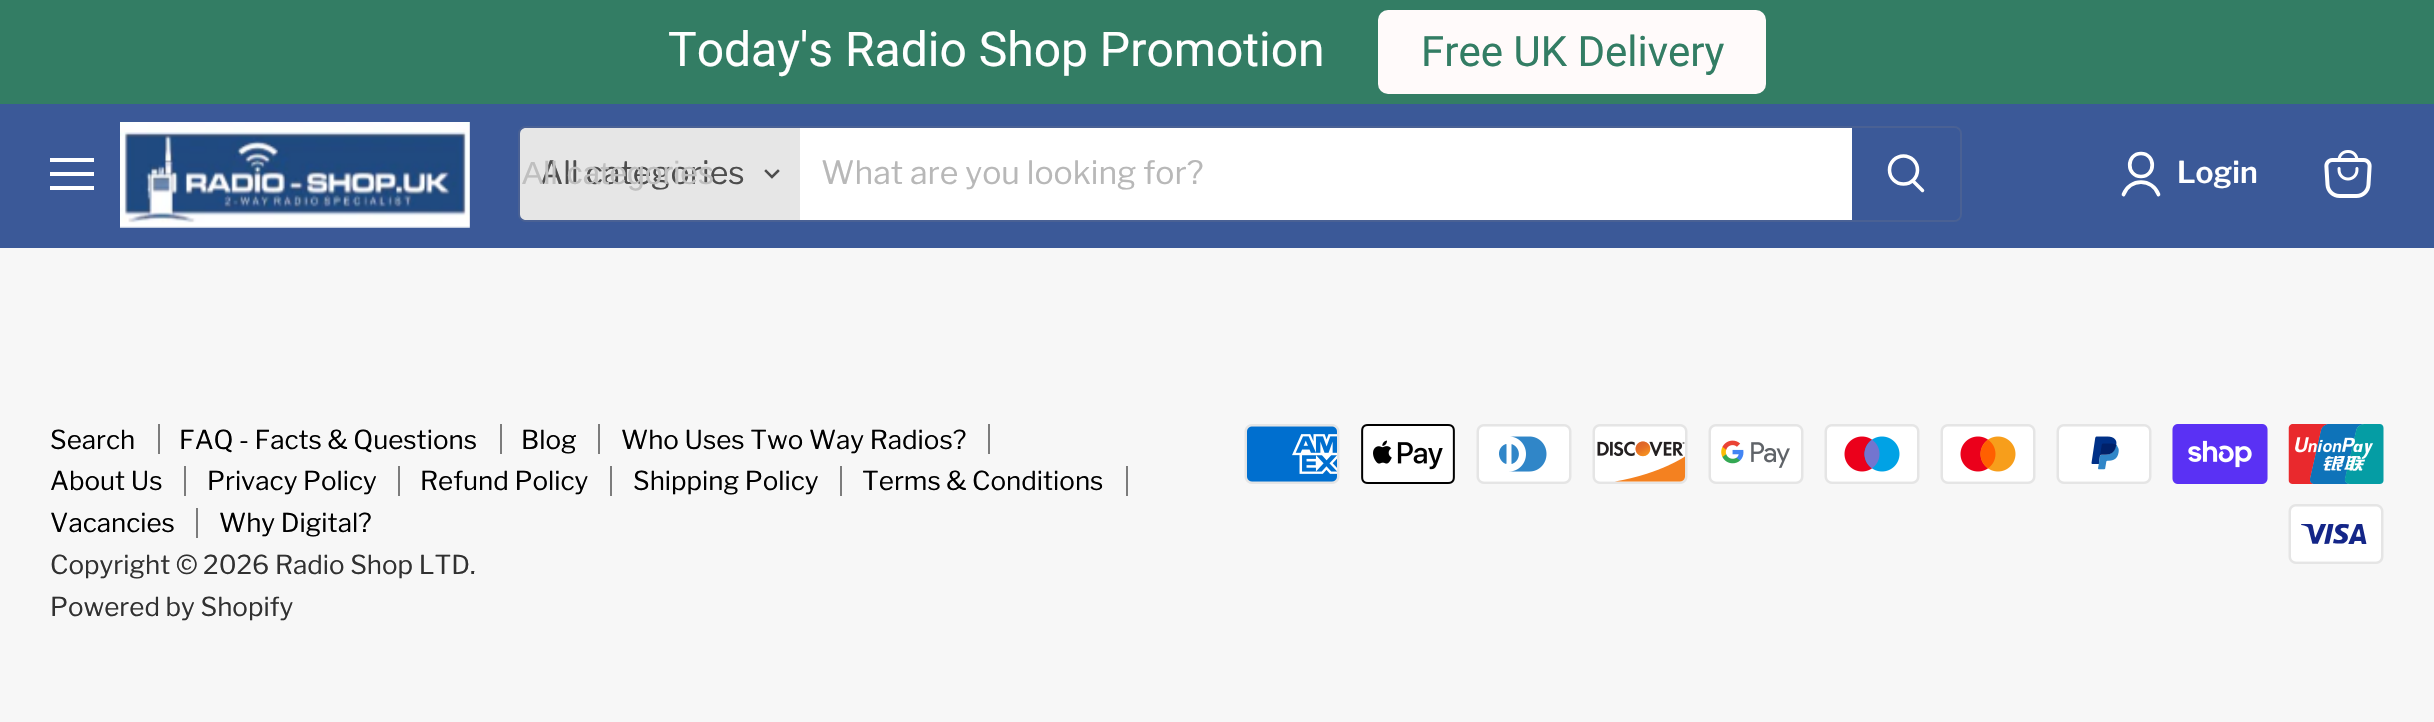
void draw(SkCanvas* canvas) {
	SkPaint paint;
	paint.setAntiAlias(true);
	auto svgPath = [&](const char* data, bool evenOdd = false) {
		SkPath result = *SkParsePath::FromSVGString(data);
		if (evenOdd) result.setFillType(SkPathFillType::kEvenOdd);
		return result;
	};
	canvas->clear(0xfff7f7f7);
	paint.setColor(0xff337d64);
	canvas->drawRect(SkRect::MakeXYWH(0, 0, 2434, 104), paint);
	SkFont f1(fontMgr->matchFamilyStyle("Roboto", SkFontStyle::Normal()), 48);
	f1.setSubpixel(true);
	paint.setColor(0xffffffff);
	canvas->drawString("Today's Radio Shop Promotion", 668, 66, f1, paint);
	paint.setColor(0xfffffafa);
	canvas->drawRoundRect(SkRect::MakeXYWH(1378, 10, 388, 84), 10, 10, paint);
	SkFont f2(fontMgr->matchFamilyStyle("Roboto", SkFontStyle::Normal()), 42);
	f2.setSubpixel(true);
	paint.setColor(0xff337d64);
	canvas->drawString("Free UK Delivery", 1421, 66, f2, paint);
	paint.setColor(0xff3b5998);
	canvas->drawRect(SkRect::MakeXYWH(0, 104, 2434, 144), paint);
	paint.setColor(0xffffffff);
	canvas->drawRect(SkRect::MakeXYWH(50, 158, 44, 4), paint);
	canvas->drawRect(SkRect::MakeXYWH(50, 172, 44, 4), paint);
	canvas->drawRect(SkRect::MakeXYWH(50, 186, 44, 4), paint);
	canvas->drawImageRect(SkImages::DeferredFromEncodedData(SkData::MakeFromFileName("img1.png")), SkRect::MakeXYWH(120, 122, 350, 106), SkSamplingOptions());
	paint.setStroke(true);
	paint.setStrokeWidth(2);
	paint.setColor(0x33808080);
	canvas->drawRoundRect(SkRect::MakeXYWH(519, 127, 1442, 94), 7, 7, paint);
	paint.setStroke(false);
	paint.setColor(0xffe6e6e6);
	canvas->drawPath(svgPath("M526 128H800V220H526C522.5 220 520 217.5 520 214V134C520 130.5 522.5 128 526 128Z"), paint);
	SkFont f3(fontMgr->matchFamilyStyle("Libre Franklin", SkFontStyle::Normal()), 32);
	f3.setSubpixel(true);
	paint.setColor(0xff4d4d4d);
	canvas->drawString("All categories", 540, 184, f3, paint);
	SkFont f4(fontMgr->matchFamilyStyle("Liberation Sans", SkFontStyle::Normal()), 32);
	f4.setSubpixel(true);
	paint.setColor(0xffbfbfbf);
	canvas->drawString("All categories", 522, 184, f4, paint);
	paint.setStroke(true);
	paint.setStrokeWidth(2.5);
	paint.setStrokeCap(SkPaint::kSquare_Cap);
	paint.setColor(0xff4d4d4d);
	canvas->drawPath(svgPath("M772 177L778 171M772 177L766 171"), paint);
	paint.setStroke(false);
	paint.setColor(0xffffffff);
	canvas->drawRect(SkRect::MakeXYWH(800, 128, 1052, 92), paint);
	paint.setColor(0xffb8b8b8);
	canvas->drawString("What are you looking for?", 821, 184, f3, paint);
	paint.setColor(0xff3b5998);
	canvas->drawPath(svgPath("M1852 128H1954C1957.5 128 1960 130.5 1960 134V214C1960 217.5 1957.5 220 1954 220H1852Z"), paint);
	paint.setStroke(true);
	paint.setStrokeWidth(3.5);
	paint.setStrokeCap(SkPaint::kRound_Cap);
	paint.setColor(0xffffffff);
	canvas->drawPath(svgPath("M1922.5 190.5L1913 181"), paint);
	paint.setStrokeCap(SkPaint::kButt_Cap);
	canvas->drawCircle(1903.5, 170, 14, paint);
	paint.setStrokeWidth(3.7);
	paint.setStrokeCap(SkPaint::kRound_Cap);
	paint.setStrokeJoin(SkPaint::kRound_Join);
	canvas->drawPath(svgPath("M2141 176.5C2156 176.5 2156 153.5 2141 153.5C2126 153.5 2126 176.5 2141 176.5ZM2158.5 194.5C2152.5 178 2129.5 178 2123.5 194.5"), paint);
	SkFont f5(fontMgr->matchFamilyStyle("Libre Franklin", SkFontStyle(600, SkFontStyle::kNormal_Width, SkFontStyle::kUpright_Slant)), 30);
	f5.setSubpixel(true);
	paint.setStroke(false);
	canvas->drawString("Login", 2177, 183, f5, paint);
	canvas->drawImageRect(SkImages::DeferredFromEncodedData(SkData::MakeFromFileName("img2.png")), SkRect::MakeXYWH(2324, 150, 48, 48), SkSamplingOptions());
	paint.setColor(0xff7c7c7c);
	canvas->drawRect(SkRect::MakeXYWH(158, 424, 2, 30), paint);
	SkFont f6(fontMgr->matchFamilyStyle("Libre Franklin", SkFontStyle::Normal()), 26);
	f6.setSubpixel(true);
	paint.setColor(0xff000000);
	canvas->drawString("Search", 50, 449, f6, paint);
	paint.setColor(0xff7c7c7c);
	canvas->drawRect(SkRect::MakeXYWH(500, 424, 2, 30), paint);
	paint.setColor(0xff000000);
	canvas->drawString("FAQ - Facts & Questions", 179, 449, f6, paint);
	paint.setColor(0xff7c7c7c);
	canvas->drawRect(SkRect::MakeXYWH(598, 424, 2, 30), paint);
	paint.setColor(0xff000000);
	canvas->drawString("Blog", 521, 449, f6, paint);
	paint.setColor(0xff7c7c7c);
	canvas->drawRect(SkRect::MakeXYWH(988, 424, 2, 30), paint);
	paint.setColor(0xff000000);
	canvas->drawString("Who Uses Two Way Radios?", 621, 449, f6, paint);
	paint.setColor(0xff7c7c7c);
	canvas->drawRect(SkRect::MakeXYWH(184, 466, 2, 30), paint);
	paint.setColor(0xff000000);
	canvas->drawString("About Us", 50, 490, f6, paint);
	paint.setColor(0xff7c7c7c);
	canvas->drawRect(SkRect::MakeXYWH(398, 466, 2, 30), paint);
	paint.setColor(0xff000000);
	canvas->drawString("Privacy Policy", 207, 490, f6, paint);
	paint.setColor(0xff7c7c7c);
	canvas->drawRect(SkRect::MakeXYWH(610, 466, 2, 30), paint);
	paint.setColor(0xff000000);
	canvas->drawString("Refund Policy", 420, 490, f6, paint);
	paint.setColor(0xff7c7c7c);
	canvas->drawRect(SkRect::MakeXYWH(840, 466, 2, 30), paint);
	paint.setColor(0xff000000);
	canvas->drawString("Shipping Policy", 633, 490, f6, paint);
	paint.setColor(0xff7c7c7c);
	canvas->drawRect(SkRect::MakeXYWH(1126, 466, 2, 30), paint);
	paint.setColor(0xff000000);
	canvas->drawString("Terms & Conditions", 862, 490, f6, paint);
	paint.setColor(0xff7c7c7c);
	canvas->drawRect(SkRect::MakeXYWH(196, 508, 2, 30), paint);
	paint.setColor(0xff000000);
	canvas->drawString("Vacancies", 50, 532, f6, paint);
	canvas->drawString("Why Digital?", 219, 532, f6, paint);
	paint.setColor(0xff313131);
	canvas->drawString("Copyright © 2026 Radio Shop LTD.", 50, 574, f6, paint);
	canvas->drawString("Powered by Shopify", 50, 616, f6, paint);
	canvas->drawImageRect(SkImages::DeferredFromEncodedData(SkData::MakeFromFileName("img3.png")), SkRect::MakeXYWH(1244, 424, 96, 60), SkSamplingOptions());
	canvas->drawImageRect(SkImages::DeferredFromEncodedData(SkData::MakeFromFileName("img4.png")), SkRect::MakeXYWH(1361, 424, 94, 60), SkSamplingOptions());
	canvas->drawImageRect(SkImages::DeferredFromEncodedData(SkData::MakeFromFileName("img5.png")), SkRect::MakeXYWH(1476, 424, 96, 60), SkSamplingOptions());
	canvas->drawImageRect(SkImages::DeferredFromEncodedData(SkData::MakeFromFileName("img6.png")), SkRect::MakeXYWH(1592, 424, 96, 60), SkSamplingOptions());
	canvas->drawImageRect(SkImages::DeferredFromEncodedData(SkData::MakeFromFileName("img7.png")), SkRect::MakeXYWH(1708, 424, 96, 60), SkSamplingOptions());
	canvas->drawImageRect(SkImages::DeferredFromEncodedData(SkData::MakeFromFileName("img8.png")), SkRect::MakeXYWH(1824, 424, 96, 60), SkSamplingOptions());
	canvas->drawImageRect(SkImages::DeferredFromEncodedData(SkData::MakeFromFileName("img9.png")), SkRect::MakeXYWH(1940, 424, 96, 60), SkSamplingOptions());
	canvas->drawImageRect(SkImages::DeferredFromEncodedData(SkData::MakeFromFileName("img10.png")), SkRect::MakeXYWH(2056, 424, 96, 60), SkSamplingOptions());
	canvas->drawImageRect(SkImages::DeferredFromEncodedData(SkData::MakeFromFileName("img11.png")), SkRect::MakeXYWH(2172, 424, 96, 60), SkSamplingOptions());
	canvas->drawImageRect(SkImages::DeferredFromEncodedData(SkData::MakeFromFileName("img12.png")), SkRect::MakeXYWH(2288, 424, 96, 60), SkSamplingOptions());
	canvas->drawImageRect(SkImages::DeferredFromEncodedData(SkData::MakeFromFileName("img13.png")), SkRect::MakeXYWH(2288, 504, 96, 60), SkSamplingOptions());
}
